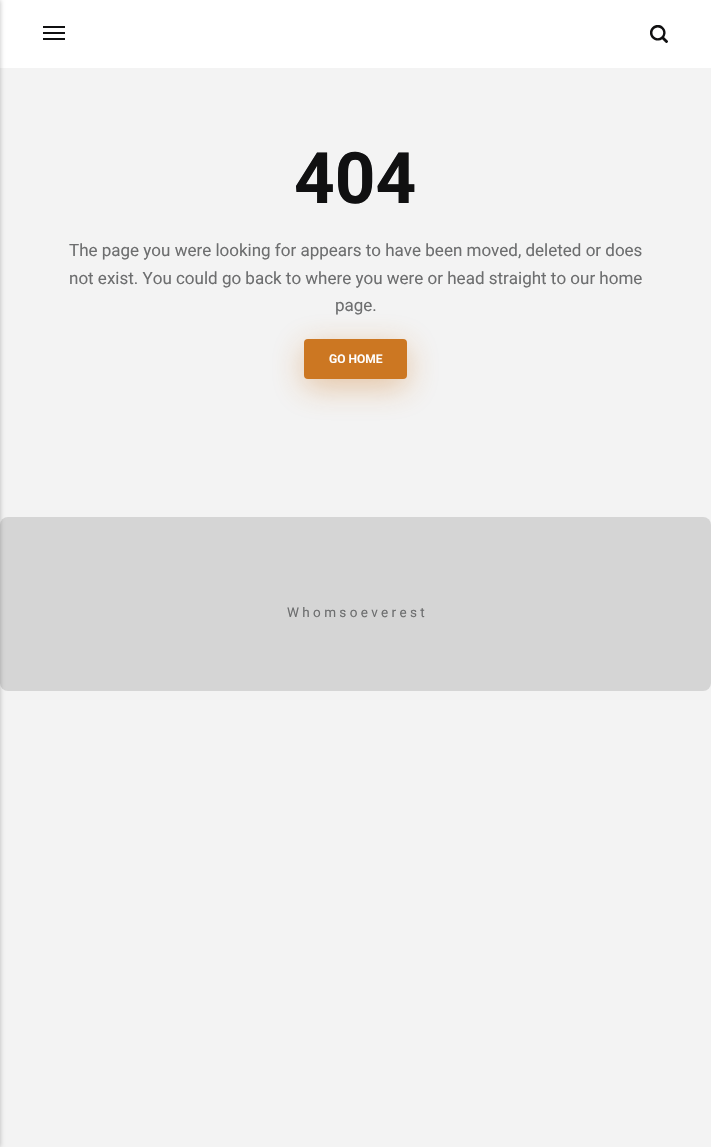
void draw(SkCanvas* canvas) {
	SkPaint paint;
	paint.setAntiAlias(true);
	canvas->clear(0xfff3f3f3);
	paint.setColor(0xffffffff);
	canvas->drawRect(SkRect::MakeXYWH(0, 0, 711, 68), paint);
	paint.setColor(0xff101011);
	canvas->drawRect(SkRect::MakeXYWH(43, 32, 22, 2), paint);
	canvas->drawRect(SkRect::MakeXYWH(43, 26, 22, 2), paint);
	canvas->drawRect(SkRect::MakeXYWH(43, 38, 22, 2), paint);
	canvas->drawImageRect(SkImages::DeferredFromEncodedData(SkData::MakeFromFileName("img1.png")), SkRect::MakeXYWH(650, 25, 18, 18), SkSamplingOptions());
	paint.setColor(0xffd5d5d5);
	canvas->drawRoundRect(SkRect::MakeXYWH(0, 517, 711, 174), 8, 8, paint);
	paint.setColor(0x40000000);
	paint.setMaskFilter(SkMaskFilter::MakeBlur(kNormal_SkBlurStyle, 2.5));
	canvas->drawRect(SkRect::MakeXYWH(-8, 0, 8, 1147), paint);
	paint.setMaskFilter(nullptr);
	SkFont f1(fontMgr->matchFamilyStyle("Roboto", SkFontStyle::Bold()), 71);
	f1.setSubpixel(true);
	paint.setColor(0xff101011);
	canvas->drawString("404", 294, 203, f1, paint);
	SkFont f2(fontMgr->matchFamilyStyle("Roboto", SkFontStyle::Normal()), 17);
	f2.setSubpixel(true);
	paint.setColor(0xff6d6e6f);
	canvas->drawString("The page you were looking for appears to have been moved, deleted or does", 69, 256, f2, paint);
	canvas->drawString("not exist. You could go back to where you were or head straight to our home", 69, 284, f2, paint);
	canvas->drawString("page.", 335, 311, f2, paint);
	paint.setColor(0x66cc7722);
	paint.setMaskFilter(SkMaskFilter::MakeBlur(kNormal_SkBlurStyle, 16));
	canvas->drawRoundRect(SkRect::MakeXYWH(304, 347, 103, 40), 4, 4, paint);
	paint.setMaskFilter(nullptr);
	paint.setColor(0xffcc7722);
	canvas->drawRoundRect(SkRect::MakeXYWH(304, 339, 103, 40), 4, 4, paint);
	SkFont f3(fontMgr->matchFamilyStyle("Roboto", SkFontStyle(600, SkFontStyle::kNormal_Width, SkFontStyle::kUpright_Slant)), 12);
	f3.setSubpixel(true);
	paint.setColor(0xffffffff);
	canvas->drawString("GO HOME", 329, 363, f3, paint);
	SkFont f4(fontMgr->matchFamilyStyle("Roboto", SkFontStyle::Normal()), 13.5);
	f4.setSubpixel(true);
	paint.setColor(0xff6d6e6f);
	canvas->drawString("W h o m s o e v e r e s t", 287, 617, f4, paint);
}
